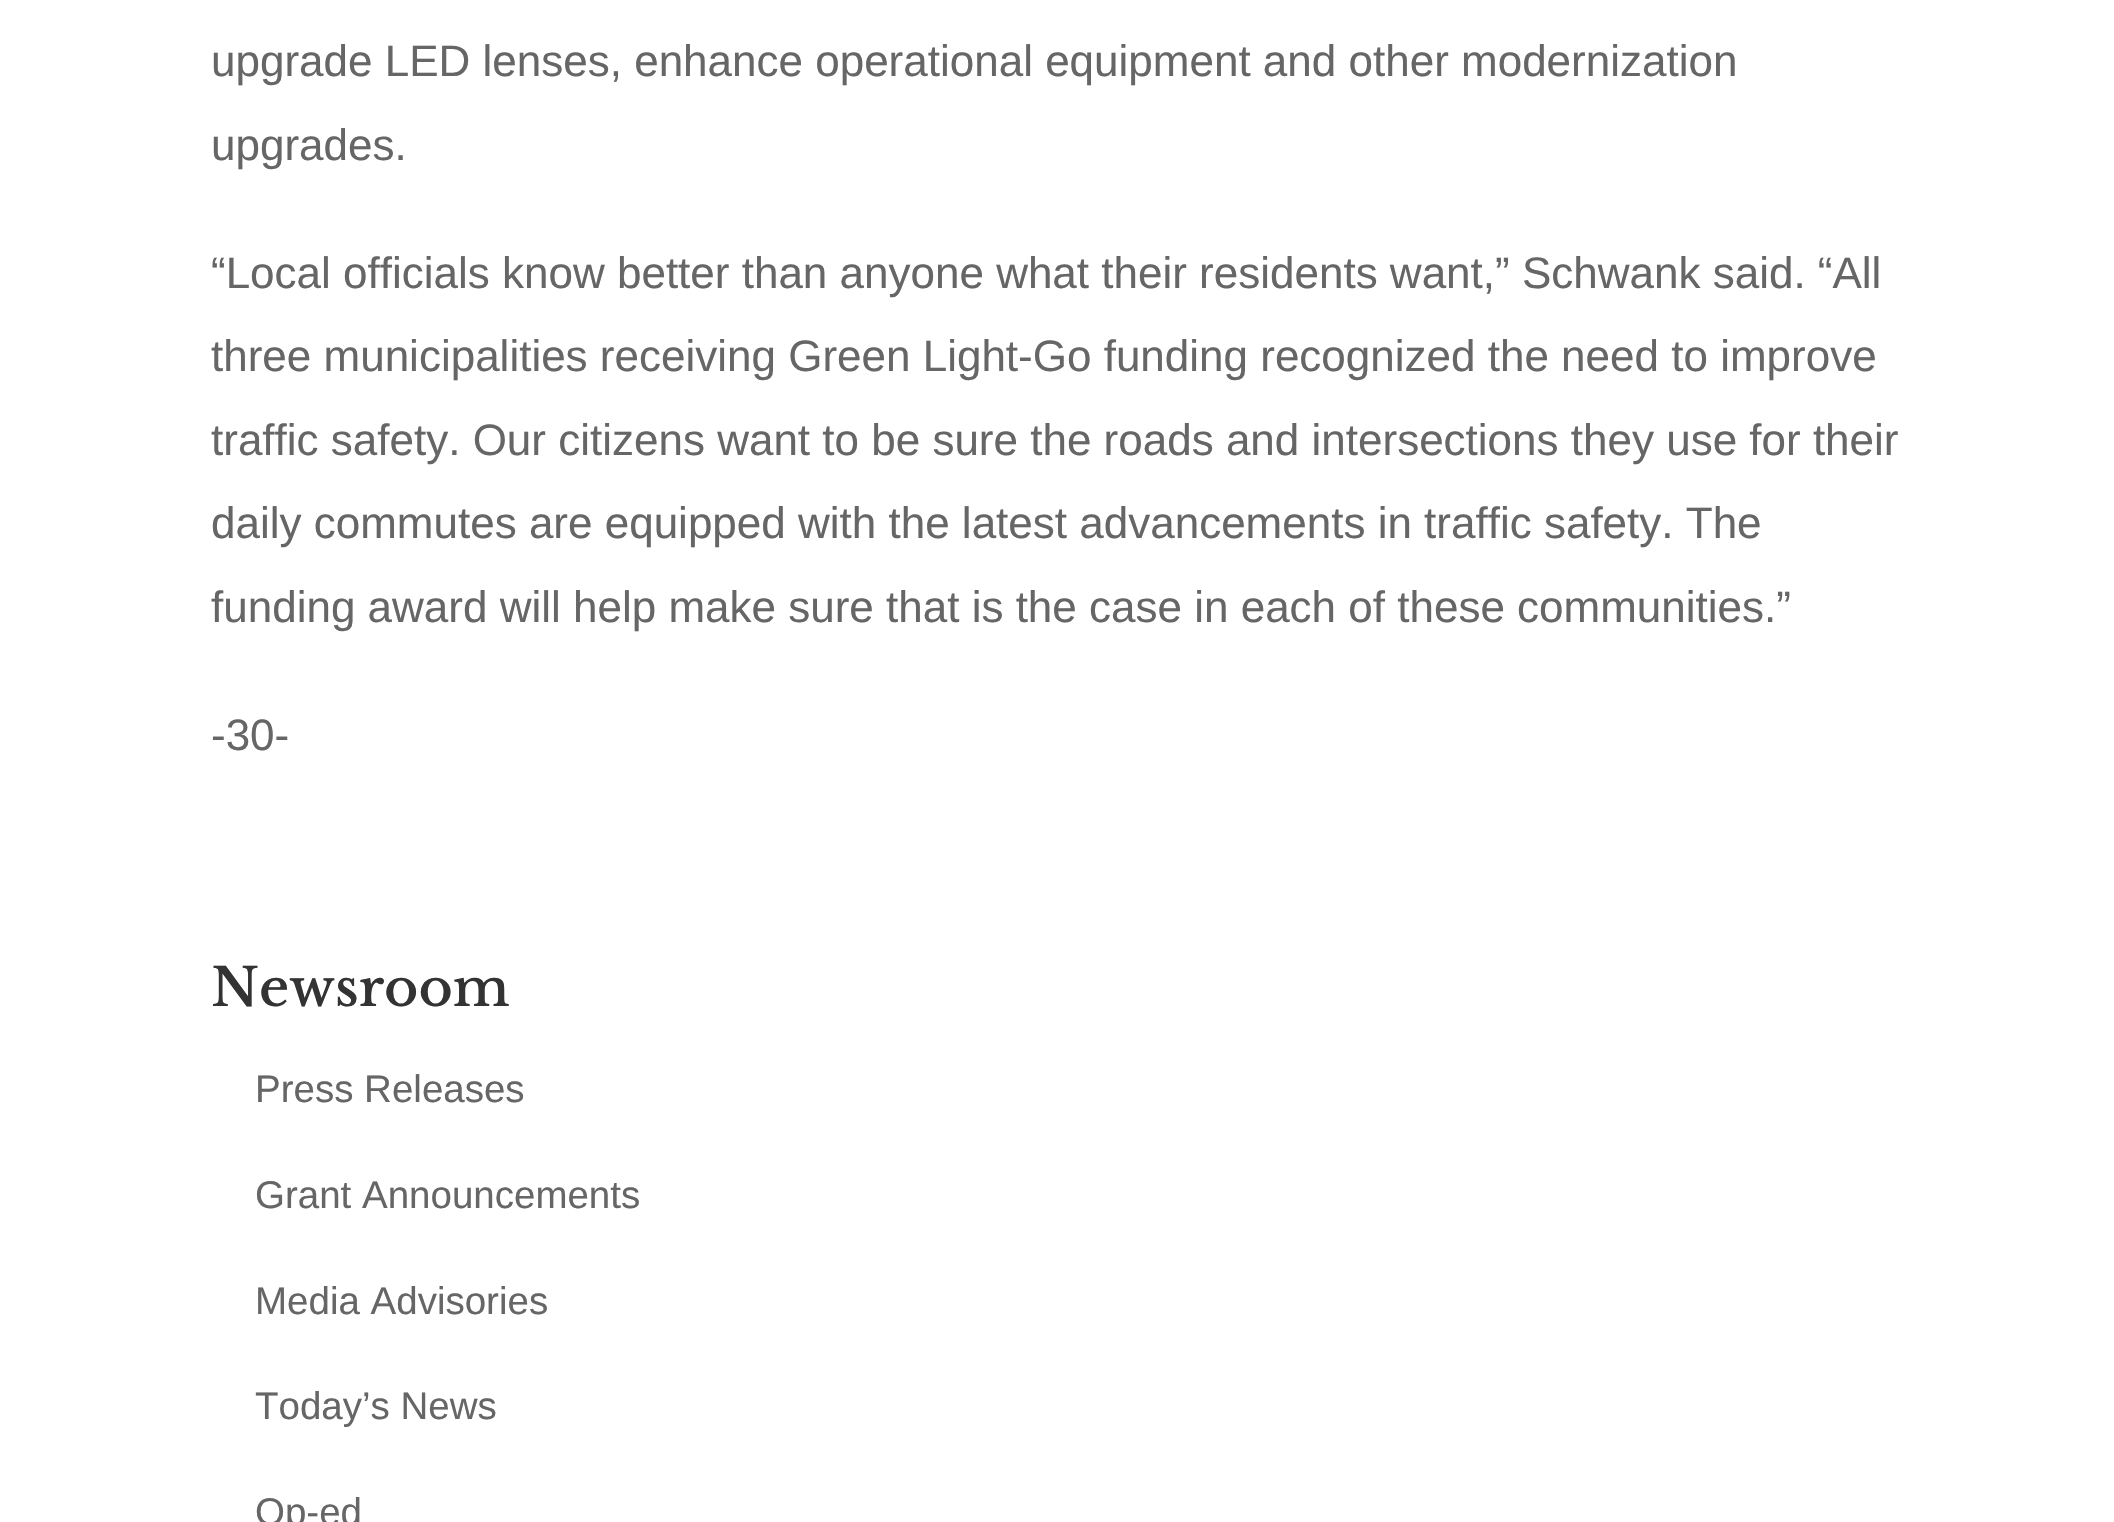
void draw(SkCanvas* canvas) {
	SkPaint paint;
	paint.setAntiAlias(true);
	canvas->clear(0xffffffff);
	SkFont f1(fontMgr->matchFamilyStyle("Liberation Sans", SkFontStyle::Normal()), 44);
	f1.setSubpixel(true);
	paint.setColor(0xff666666);
	canvas->drawString("upgrade LED lenses, enhance operational equipment and other modernization", 211, 76, f1, paint);
	canvas->drawString("upgrades.", 211, 160, f1, paint);
	canvas->drawString("“Local officials know better than anyone what their residents want,” Schwank said. “All", 211, 288, f1, paint);
	canvas->drawString("three municipalities receiving Green Light-Go funding recognized the need to improve", 211, 371, f1, paint);
	canvas->drawString("traffic safety. Our citizens want to be sure the roads and intersections they use for their", 211, 455, f1, paint);
	canvas->drawString("daily commutes are equipped with the latest advancements in traffic safety. The", 211, 538, f1, paint);
	canvas->drawString("funding award will help make sure that is the case in each of these communities.”", 211, 622, f1, paint);
	canvas->drawString("-30-", 211, 750, f1, paint);
	SkFont f2(fontMgr->matchFamilyStyle("Libre Baskerville", SkFontStyle(500, SkFontStyle::kNormal_Width, SkFontStyle::kUpright_Slant)), 52.25);
	f2.setSubpixel(true);
	paint.setColor(0xff333333);
	canvas->drawString("Newsroom", 211, 1006, f2, paint);
	SkFont f3(fontMgr->matchFamilyStyle("Liberation Sans", SkFontStyle::Normal()), 38.5);
	f3.setSubpixel(true);
	paint.setColor(0xff666666);
	canvas->drawString("Press Releases", 255, 1102, f3, paint);
	canvas->drawString("Grant Announcements", 255, 1208, f3, paint);
	canvas->drawString("Media Advisories", 255, 1314, f3, paint);
	canvas->drawString("Today’s News", 255, 1419, f3, paint);
	canvas->drawString("Op-ed", 255, 1525, f3, paint);
}
